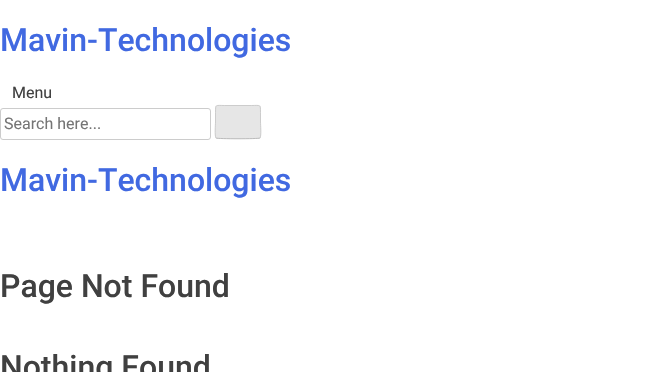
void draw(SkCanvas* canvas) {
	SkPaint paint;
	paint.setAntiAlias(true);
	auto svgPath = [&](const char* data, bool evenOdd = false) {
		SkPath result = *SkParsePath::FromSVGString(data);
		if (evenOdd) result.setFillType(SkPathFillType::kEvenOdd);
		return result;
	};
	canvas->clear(0xffffffff);
	SkFont f1(fontMgr->matchFamilyStyle("Roboto", SkFontStyle(500, SkFontStyle::kNormal_Width, SkFontStyle::kUpright_Slant)), 32);
	f1.setSubpixel(true);
	paint.setColor(0xff4169e1);
	canvas->drawString("Mavin-Technologies", 0, 51, f1, paint);
	SkFont f2(fontMgr->matchFamilyStyle("Roboto", SkFontStyle::Normal()), 16);
	f2.setSubpixel(true);
	paint.setColor(0xff404040);
	canvas->drawString("Menu", 12, 98, f2, paint);
	paint.setStroke(true);
	paint.setStrokeWidth(1);
	paint.setColor(0xffcccccc);
	canvas->drawRoundRect(SkRect::MakeXYWH(0.5, 108.5, 210, 31), 2.5, 2.5, paint);
	paint.setStroke(false);
	paint.setColor(0xff757575);
	canvas->drawString("Search here...", 4, 129, f2, paint);
	paint.setColor(0xffe6e6e6);
	canvas->drawRoundRect(SkRect::MakeXYWH(215, 105, 46, 34), 3, 3, paint);
	paint.setStroke(true);
	paint.setColor(0xffbbbbbb);
	canvas->drawPath(svgPath("M260 138C258.5 139 217.5 139 216 138"), paint);
	paint.setColor(0xffcccccc);
	canvas->drawPath(svgPath("M216 138C214.5 136 215.5 124.5 215.5 122V112.5C215.5 104 215.5 105.5 224.5 105.5H251.5C260.5 105.5 260.5 104 260.5 112.5V122C260.5 124.5 261.5 136 260 138"), paint);
	paint.setStroke(false);
	paint.setColor(0xff4169e1);
	canvas->drawString("Mavin-Technologies", 0, 191, f1, paint);
	paint.setColor(0xff404040);
	canvas->drawString("Page Not Found", 0, 297, f1, paint);
	canvas->drawString("Nothing Found", 0, 378, f1, paint);
}
